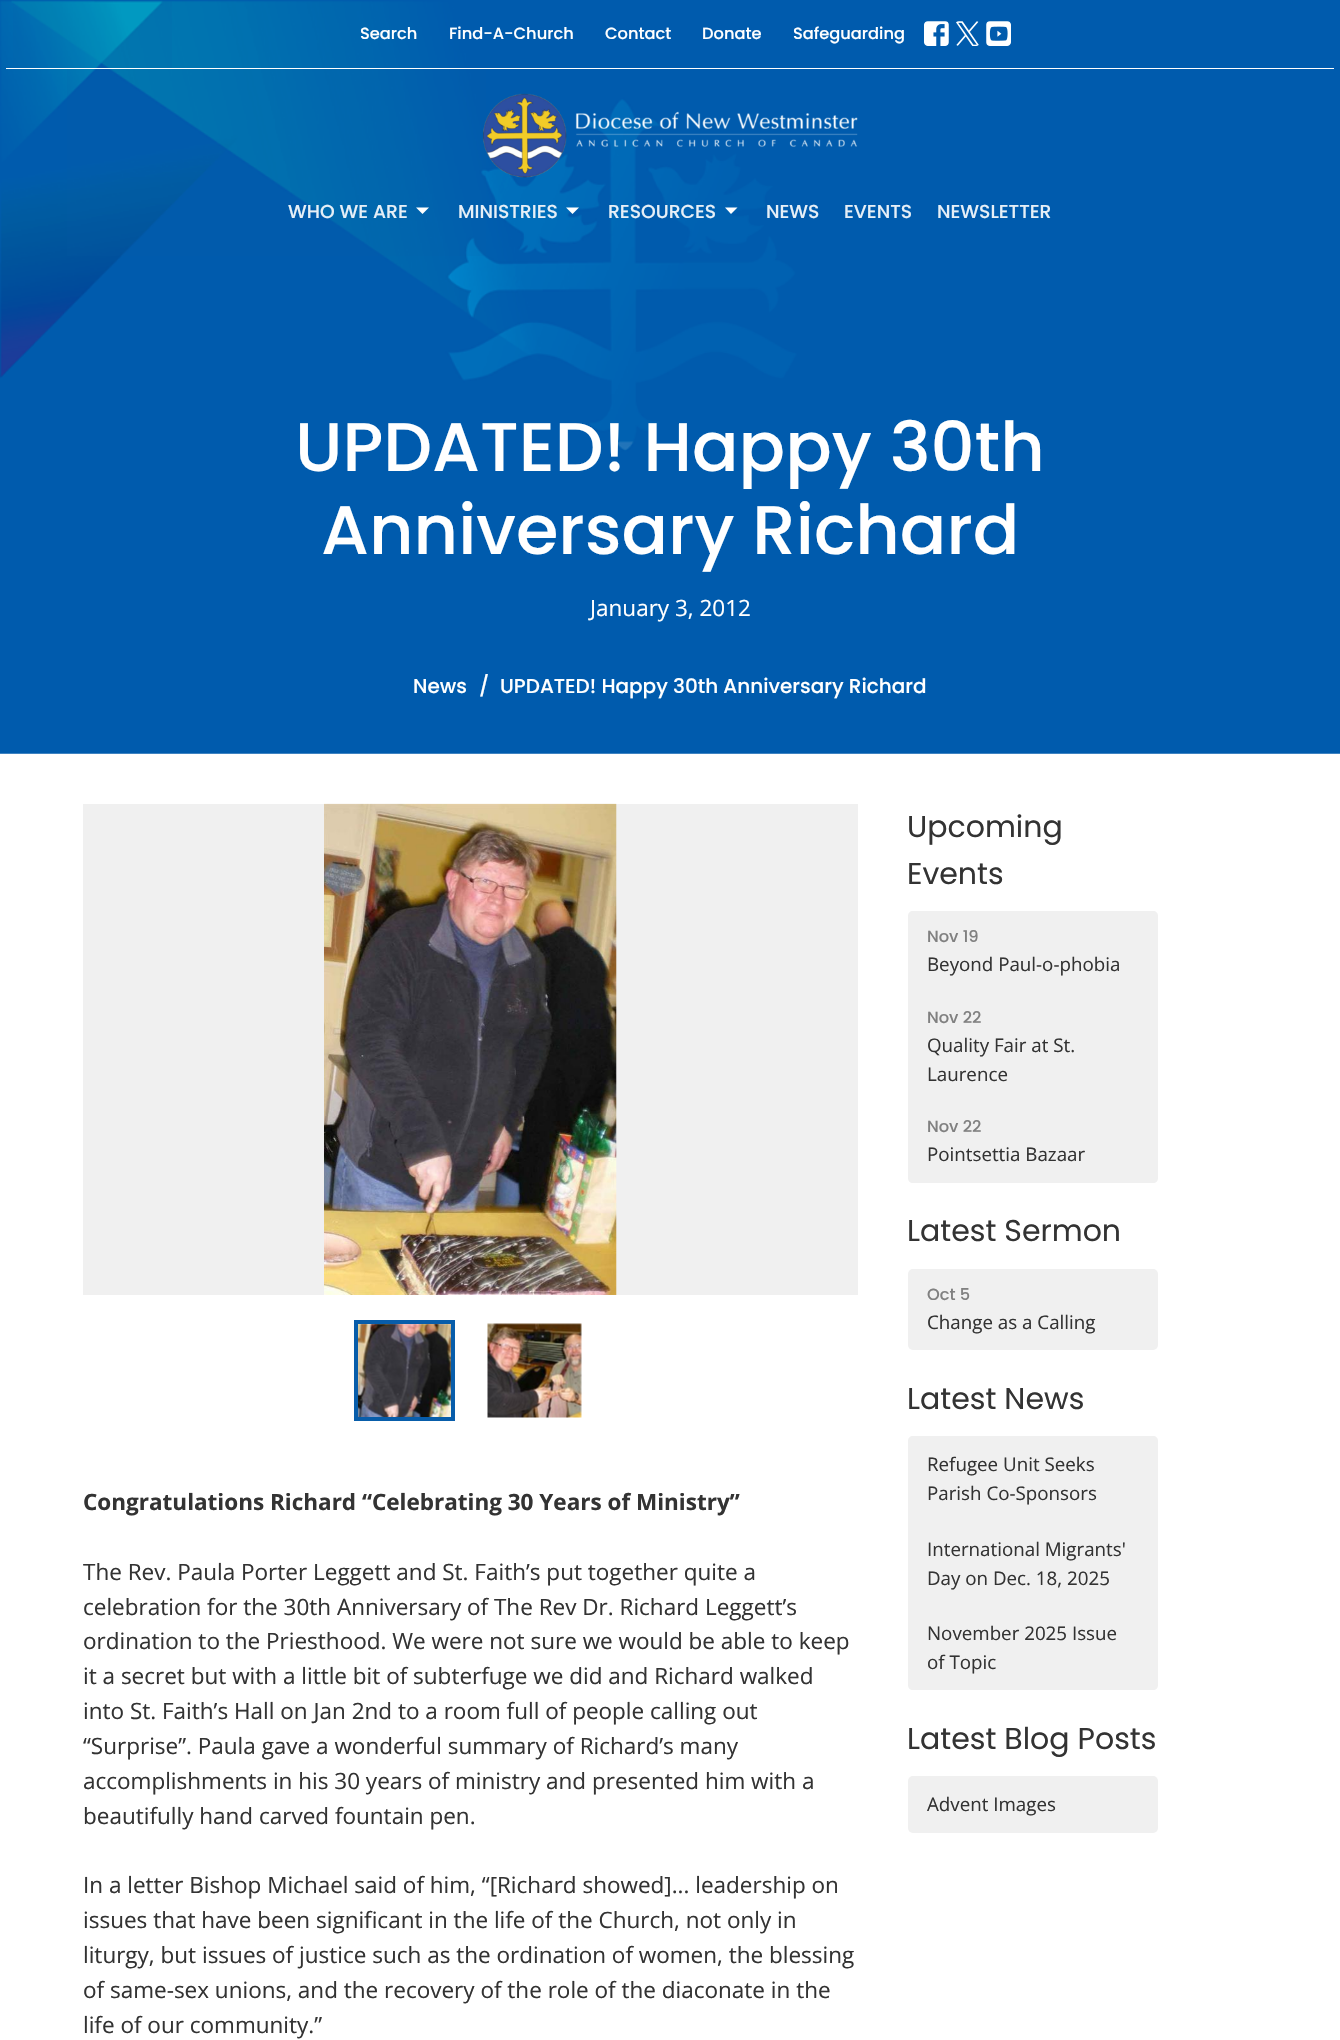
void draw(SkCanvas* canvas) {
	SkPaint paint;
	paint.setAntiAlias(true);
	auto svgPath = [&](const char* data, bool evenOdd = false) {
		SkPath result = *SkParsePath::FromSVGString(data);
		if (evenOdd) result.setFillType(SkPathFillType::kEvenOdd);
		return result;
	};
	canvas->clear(0xffffffff);
	canvas->drawImageRect(SkImages::DeferredFromEncodedData(SkData::MakeFromFileName("img5.png")), SkRect::MakeXYWH(0, 0, 1340, 754), SkSamplingOptions());
	paint.setColor(0x1a085daa);
	canvas->drawRect(SkRect::MakeXYWH(13, 1, 159, 68), paint);
	paint.setColor(0xffffffff);
	canvas->drawRect(SkRect::MakeXYWH(6, 68, 1328, 1), paint);
	SkFont f1(fontMgr->matchFamilyStyle("Poppins", SkFontStyle(500, SkFontStyle::kNormal_Width, SkFontStyle::kUpright_Slant)), 16.25);
	f1.setSubpixel(true);
	canvas->drawString("Search", 360, 39, f1, paint);
	canvas->drawString("Find-A-Church", 449, 39, f1, paint);
	canvas->drawString("Contact", 605, 39, f1, paint);
	canvas->drawString("Donate", 702, 39, f1, paint);
	canvas->drawString("Safeguarding", 793, 39, f1, paint);
	canvas->drawImageRect(SkImages::DeferredFromEncodedData(SkData::MakeFromFileName("img1.png")), SkRect::MakeXYWH(924, 21, 25, 25), SkSamplingOptions());
	canvas->drawImageRect(SkImages::DeferredFromEncodedData(SkData::MakeFromFileName("img2.png")), SkRect::MakeXYWH(956, 21, 23, 25), SkSamplingOptions());
	canvas->drawImageRect(SkImages::DeferredFromEncodedData(SkData::MakeFromFileName("img3.png")), SkRect::MakeXYWH(986, 21, 25, 25), SkSamplingOptions());
	paint.setColor(0x1a085daa);
	canvas->drawRect(SkRect::MakeXYWH(67, 69, 419, 187), paint);
	canvas->drawImageRect(SkImages::DeferredFromEncodedData(SkData::MakeFromFileName("img4.png")), SkRect::MakeXYWH(483, 93, 375, 85), SkSamplingOptions());
	SkFont f2(fontMgr->matchFamilyStyle("Poppins", SkFontStyle(500, SkFontStyle::kNormal_Width, SkFontStyle::kUpright_Slant)), 18.75);
	f2.setSubpixel(true);
	paint.setColor(0xffe6eff7);
	canvas->drawString("WHO WE ARE", 288, 218, f2, paint);
	paint.setColor(0xffffffff);
	canvas->drawPath(svgPath("M416 207.5L422.5 214L429 207.5Z"), paint);
	paint.setColor(0xffe6eff7);
	canvas->drawString("MINISTRIES", 458, 218, f2, paint);
	paint.setColor(0xffffffff);
	canvas->drawPath(svgPath("M566 207.5L572.5 214L579 207.5Z"), paint);
	paint.setColor(0xffe6eff7);
	canvas->drawString("RESOURCES", 608, 218, f2, paint);
	paint.setColor(0xffffffff);
	canvas->drawPath(svgPath("M725 207.5L731 214L737.5 207.5Z"), paint);
	paint.setColor(0xffe6eff7);
	canvas->drawString("NEWS", 766, 218, f2, paint);
	canvas->drawString("EVENTS", 844, 218, f2, paint);
	canvas->drawString("NEWSLETTER", 937, 218, f2, paint);
	SkFont f3(fontMgr->matchFamilyStyle("Poppins", SkFontStyle(500, SkFontStyle::kNormal_Width, SkFontStyle::kUpright_Slant)), 68.75);
	f3.setSubpixel(true);
	paint.setColor(0xffffffff);
	canvas->drawString("UPDATED! Happy 30th", 295, 471, f3, paint);
	canvas->drawString("Anniversary Richard", 321, 554, f3, paint);
	SkFont f4(fontMgr->matchFamilyStyle("Open Sans", SkFontStyle::Normal()), 22.5);
	f4.setSubpixel(true);
	canvas->drawString("January 3, 2012", 590, 616, f4, paint);
	SkFont f5(fontMgr->matchFamilyStyle("Poppins", SkFontStyle(500, SkFontStyle::kNormal_Width, SkFontStyle::kUpright_Slant)), 20);
	f5.setSubpixel(true);
	canvas->drawString("News", 413, 693, f5, paint);
	canvas->drawString("/", 479, 693, f5, paint);
	canvas->drawString("UPDATED! Happy 30th Anniversary Richard", 500, 693, f5, paint);
	paint.setColor(0xfff0f0f0);
	canvas->drawRect(SkRect::MakeXYWH(83, 804, 775, 491), paint);
	canvas->drawImageRect(SkImages::DeferredFromEncodedData(SkData::MakeFromFileName("img6.png")), SkRect::MakeXYWH(324, 803, 293, 492), SkSamplingOptions());
	canvas->drawImageRect(SkImages::DeferredFromEncodedData(SkData::MakeFromFileName("img7.png")), SkRect::MakeXYWH(358, 1324, 93, 93), SkSamplingOptions());
	paint.setStroke(true);
	paint.setStrokeWidth(4);
	paint.setColor(0xff085daa);
	canvas->drawRect(SkRect::MakeXYWH(356, 1322, 97, 97), paint);
	canvas->drawImageRect(SkImages::DeferredFromEncodedData(SkData::MakeFromFileName("img8.png")), SkRect::MakeXYWH(487, 1323, 95, 95), SkSamplingOptions());
	SkFont f6(fontMgr->matchFamilyStyle("Open Sans", SkFontStyle::Bold()), 22.5);
	f6.setSubpixel(true);
	paint.setStroke(false);
	paint.setColor(0xff333333);
	canvas->drawString("Congratulations Richard “Celebrating 30 Years of Ministry”", 83, 1510, f6, paint);
	canvas->drawString("The Rev. Paula Porter Leggett and St. Faith’s put together quite a", 83, 1580, f4, paint);
	canvas->drawString("celebration for the 30th Anniversary of The Rev Dr. Richard Leggett’s", 83, 1615, f4, paint);
	canvas->drawString("ordination to the Priesthood. We were not sure we would be able to keep", 83, 1649, f4, paint);
	canvas->drawString("it a secret but with a little bit of subterfuge we did and Richard walked", 83, 1684, f4, paint);
	canvas->drawString("into St. Faith’s Hall on Jan 2nd to a room full of people calling out", 83, 1719, f4, paint);
	canvas->drawString("“Surprise”. Paula gave a wonderful summary of Richard’s many", 83, 1754, f4, paint);
	canvas->drawString("accomplishments in his 30 years of ministry and presented him with a", 83, 1789, f4, paint);
	canvas->drawString("beautifully hand carved fountain pen.", 83, 1824, f4, paint);
	canvas->drawString("In a letter Bishop Michael said of him, “[Richard showed]... leadership on", 83, 1893, f4, paint);
	canvas->drawString("issues that have been significant in the life of the Church, not only in", 83, 1928, f4, paint);
	canvas->drawString("liturgy, but issues of justice such as the ordination of women, the blessing", 83, 1963, f4, paint);
	canvas->drawString("of same-sex unions, and the recovery of the role of the diaconate in the", 83, 1998, f4, paint);
	canvas->drawString("life of our community.”", 83, 2033, f4, paint);
	SkFont f7(fontMgr->matchFamilyStyle("Poppins", SkFontStyle::Normal()), 30);
	f7.setSubpixel(true);
	canvas->drawString("Upcoming", 907, 837, f7, paint);
	canvas->drawString("Events", 907, 884, f7, paint);
	paint.setColor(0xfff0f0f0);
	canvas->drawPath(svgPath("M913 911H1153C1156 911 1158 913 1158 916V993H908V916C908 913 910 911 913 911Z"), paint);
	paint.setColor(0xff808080);
	canvas->drawString("Nov 19", 927, 942, f1, paint);
	SkFont f8(fontMgr->matchFamilyStyle("Open Sans", SkFontStyle::Normal()), 18.75);
	f8.setSubpixel(true);
	paint.setColor(0xff333333);
	canvas->drawString("Beyond Paul-o-phobia", 927, 971, f8, paint);
	paint.setColor(0xfff0f0f0);
	canvas->drawRect(SkRect::MakeXYWH(908, 993, 250, 108), paint);
	paint.setColor(0xff808080);
	canvas->drawString("Nov 22", 927, 1023, f1, paint);
	paint.setColor(0xff333333);
	canvas->drawString("Quality Fair at St.", 927, 1052, f8, paint);
	canvas->drawString("Laurence", 927, 1081, f8, paint);
	paint.setColor(0xfff0f0f0);
	canvas->drawPath(svgPath("M908 1101H1158V1178C1158 1181 1156 1183 1153 1183H913C910 1183 908 1181 908 1178Z"), paint);
	paint.setColor(0xff808080);
	canvas->drawString("Nov 22", 927, 1132, f1, paint);
	paint.setColor(0xff333333);
	canvas->drawString("Pointsettia Bazaar", 927, 1161, f8, paint);
	canvas->drawString("Latest Sermon", 907, 1241, f7, paint);
	paint.setColor(0xfff0f0f0);
	canvas->drawRoundRect(SkRect::MakeXYWH(908, 1269, 250, 81), 5, 5, paint);
	paint.setColor(0xff808080);
	canvas->drawString("Oct 5", 927, 1300, f1, paint);
	paint.setColor(0xff333333);
	canvas->drawString("Change as a Calling", 927, 1329, f8, paint);
	canvas->drawString("Latest News", 907, 1409, f7, paint);
	paint.setColor(0xfff0f0f0);
	canvas->drawPath(svgPath("M913 1436H1153C1156 1436 1158 1438 1158 1441V1521H908V1441C908 1438 910 1436 913 1436Z"), paint);
	paint.setColor(0xff333333);
	canvas->drawString("Refugee Unit Seeks", 927, 1471, f8, paint);
	canvas->drawString("Parish Co-Sponsors", 927, 1500, f8, paint);
	paint.setColor(0xfff0f0f0);
	canvas->drawRect(SkRect::MakeXYWH(908, 1521, 250, 84), paint);
	paint.setColor(0xff333333);
	canvas->drawString("International Migrants'", 927, 1556, f8, paint);
	canvas->drawString("Day on Dec. 18, 2025", 927, 1585, f8, paint);
	paint.setColor(0xfff0f0f0);
	canvas->drawPath(svgPath("M908 1605H1158V1685C1158 1688 1156 1690 1153 1690H913C910 1690 908 1688 908 1685Z"), paint);
	paint.setColor(0xff333333);
	canvas->drawString("November 2025 Issue", 927, 1640, f8, paint);
	canvas->drawString("of Topic", 927, 1669, f8, paint);
	canvas->drawString("Latest Blog Posts", 907, 1749, f7, paint);
	paint.setColor(0xfff0f0f0);
	canvas->drawRoundRect(SkRect::MakeXYWH(908, 1776, 250, 57), 5, 5, paint);
	paint.setColor(0xff333333);
	canvas->drawString("Advent Images", 927, 1811, f8, paint);
}
